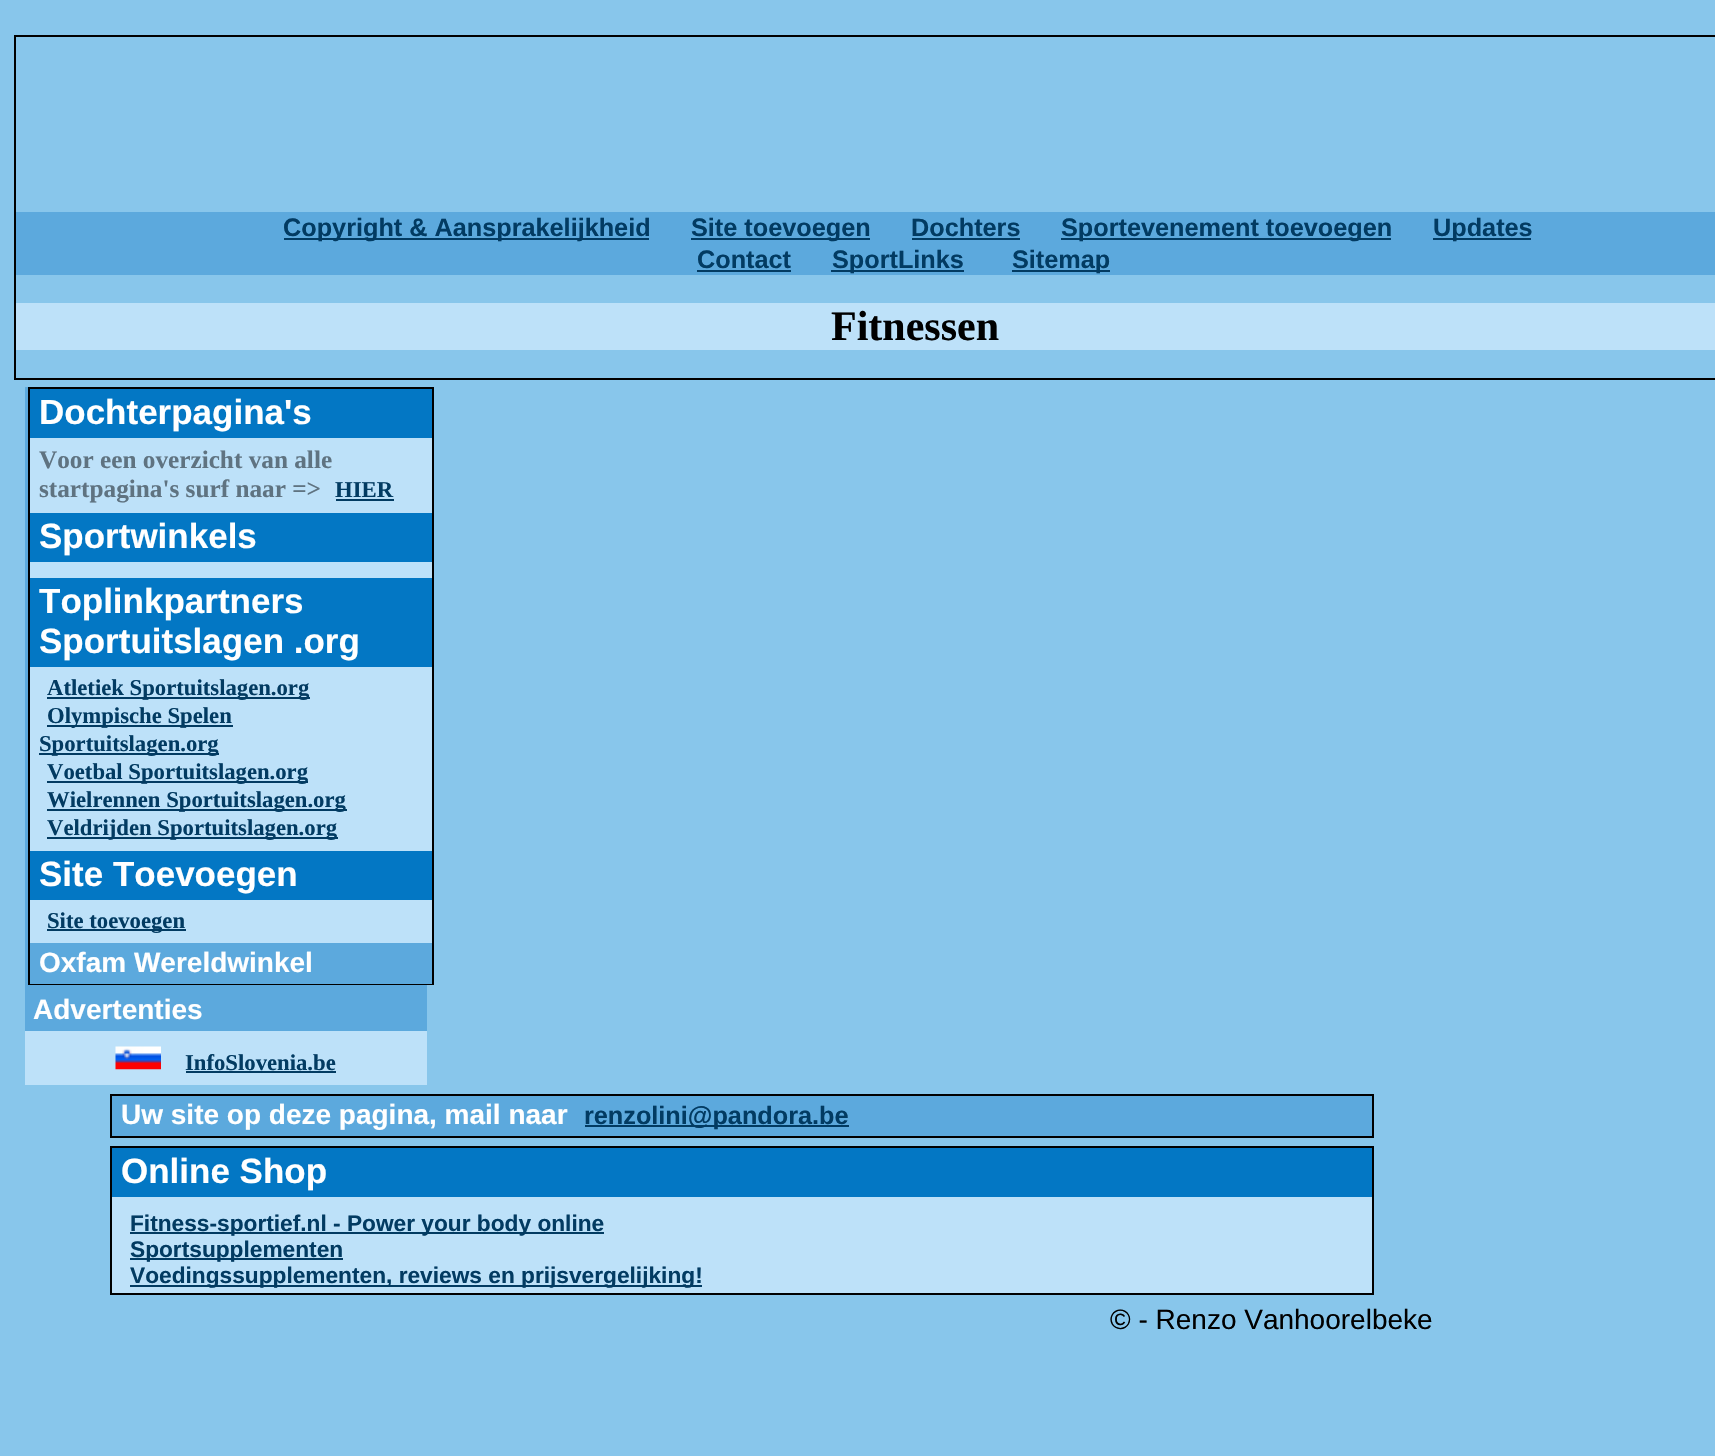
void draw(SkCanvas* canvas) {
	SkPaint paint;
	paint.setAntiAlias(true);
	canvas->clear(0xff88c6eb);
	paint.setStroke(true);
	paint.setStrokeWidth(2);
	paint.setColor(0xff000000);
	canvas->drawRect(SkRect::MakeXYWH(15, 36, 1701, 343), paint);
	paint.setStroke(false);
	paint.setColor(0xff5ca9dd);
	canvas->drawRect(SkRect::MakeXYWH(16, 212, 1699, 63), paint);
	paint.setColor(0xff023b62);
	canvas->drawRect(SkRect::MakeXYWH(284, 238, 365, 2), paint);
	SkFont f1(fontMgr->matchFamilyStyle("Liberation Sans", SkFontStyle::Bold()), 25.25);
	f1.setSubpixel(true);
	canvas->drawString("Copyright & Aansprakelijkheid", 283, 236, f1, paint);
	canvas->drawRect(SkRect::MakeXYWH(691, 238, 179, 2), paint);
	canvas->drawString("Site toevoegen", 691, 236, f1, paint);
	canvas->drawString("Dochters", 911, 236, f1, paint);
	canvas->drawRect(SkRect::MakeXYWH(912, 238, 108, 2), paint);
	canvas->drawRect(SkRect::MakeXYWH(1061, 238, 330, 2), paint);
	canvas->drawString("Sportevenement toevoegen", 1061, 236, f1, paint);
	canvas->drawRect(SkRect::MakeXYWH(1433, 238, 98, 2), paint);
	canvas->drawString("Updates", 1433, 236, f1, paint);
	canvas->drawString("Contact", 697, 268, f1, paint);
	canvas->drawRect(SkRect::MakeXYWH(697, 270, 94, 2), paint);
	canvas->drawRect(SkRect::MakeXYWH(831, 270, 133, 2), paint);
	canvas->drawString("SportLinks", 832, 268, f1, paint);
	canvas->drawRect(SkRect::MakeXYWH(1012, 270, 98, 2), paint);
	canvas->drawString("Sitemap", 1012, 268, f1, paint);
	paint.setColor(0xffbde1f9);
	canvas->drawRect(SkRect::MakeXYWH(16, 303, 1699, 47), paint);
	SkFont f2(fontMgr->matchFamilyStyle("Liberation Serif", SkFontStyle::Bold()), 42);
	f2.setSubpixel(true);
	paint.setColor(0xff000000);
	canvas->drawString("Fitnessen", 831, 340, f2, paint);
	paint.setColor(0xff5ca9dd);
	canvas->drawRect(SkRect::MakeXYWH(25, 387, 402, 644), paint);
	paint.setColor(0xffbde1f9);
	canvas->drawRect(SkRect::MakeXYWH(30, 438, 402, 505), paint);
	paint.setStroke(true);
	paint.setColor(0xff000000);
	canvas->drawRect(SkRect::MakeXYWH(29, 388, 404, 596), paint);
	paint.setStroke(false);
	paint.setColor(0xff0377c4);
	canvas->drawRect(SkRect::MakeXYWH(30, 389, 402, 49), paint);
	SkFont f3(fontMgr->matchFamilyStyle("Liberation Sans", SkFontStyle::Bold()), 35);
	f3.setSubpixel(true);
	paint.setColor(0xffffffff);
	canvas->drawString("Dochterpagina's", 39, 424, f3, paint);
	SkFont f4(fontMgr->matchFamilyStyle("Liberation Serif", SkFontStyle::Bold()), 25.25);
	f4.setSubpixel(true);
	paint.setColor(0xff5f7381);
	canvas->drawString("Voor een overzicht van alle", 39, 468, f4, paint);
	canvas->drawString("startpagina's surf naar =>", 39, 497, f4, paint);
	SkFont f5(fontMgr->matchFamilyStyle("Liberation Serif", SkFontStyle::Bold()), 22.7);
	f5.setSubpixel(true);
	paint.setColor(0xff023b62);
	canvas->drawString("HIER", 335, 497, f5, paint);
	canvas->drawRect(SkRect::MakeXYWH(336, 499, 58, 2), paint);
	paint.setColor(0xff0377c4);
	canvas->drawRect(SkRect::MakeXYWH(30, 513, 402, 49), paint);
	paint.setColor(0xffffffff);
	canvas->drawString("Sportwinkels", 39, 548, f3, paint);
	paint.setColor(0xff0377c4);
	canvas->drawRect(SkRect::MakeXYWH(30, 578, 402, 89), paint);
	paint.setColor(0xffffffff);
	canvas->drawString("Toplinkpartners", 39, 613, f3, paint);
	canvas->drawString("Sportuitslagen .org", 39, 653, f3, paint);
	paint.setColor(0xff023b62);
	canvas->drawRect(SkRect::MakeXYWH(47, 697, 263, 2), paint);
	canvas->drawString("Atletiek Sportuitslagen.org", 47, 695, f5, paint);
	canvas->drawRect(SkRect::MakeXYWH(47, 725, 186, 2), paint);
	canvas->drawString("Olympische Spelen", 47, 723, f5, paint);
	canvas->drawRect(SkRect::MakeXYWH(39, 753, 180, 2), paint);
	canvas->drawString("Sportuitslagen.org", 39, 751, f5, paint);
	canvas->drawRect(SkRect::MakeXYWH(47, 781, 261, 2), paint);
	canvas->drawString("Voetbal Sportuitslagen.org", 47, 779, f5, paint);
	canvas->drawRect(SkRect::MakeXYWH(47, 809, 300, 2), paint);
	canvas->drawString("Wielrennen Sportuitslagen.org", 47, 807, f5, paint);
	canvas->drawRect(SkRect::MakeXYWH(47, 837, 291, 2), paint);
	canvas->drawString("Veldrijden Sportuitslagen.org", 47, 835, f5, paint);
	paint.setColor(0xff0377c4);
	canvas->drawRect(SkRect::MakeXYWH(30, 851, 402, 49), paint);
	paint.setColor(0xffffffff);
	canvas->drawString("Site Toevoegen", 39, 886, f3, paint);
	paint.setColor(0xff023b62);
	canvas->drawRect(SkRect::MakeXYWH(47, 929, 139, 2), paint);
	canvas->drawString("Site toevoegen", 47, 928, f5, paint);
	paint.setColor(0xff5ca9dd);
	canvas->drawRect(SkRect::MakeXYWH(30, 943, 402, 41), paint);
	SkFont f6(fontMgr->matchFamilyStyle("Liberation Sans", SkFontStyle::Bold()), 28);
	f6.setSubpixel(true);
	paint.setColor(0xffffffff);
	canvas->drawString("Oxfam Wereldwinkel", 39, 972, f6, paint);
	canvas->drawString("Advertenties", 33, 1019, f6, paint);
	paint.setColor(0xffbde1f9);
	canvas->drawRect(SkRect::MakeXYWH(25, 1031, 402, 54), paint);
	canvas->drawImageRect(SkImages::DeferredFromEncodedData(SkData::MakeFromFileName("img1.png")), SkRect::MakeXYWH(115, 1046, 46, 24), SkSamplingOptions());
	paint.setColor(0xff023b62);
	canvas->drawString("InfoSlovenia.be", 185, 1070, f5, paint);
	canvas->drawRect(SkRect::MakeXYWH(186, 1071, 150, 2), paint);
	paint.setStroke(true);
	paint.setColor(0xff000000);
	canvas->drawRect(SkRect::MakeXYWH(111, 1095, 1262, 42), paint);
	paint.setStroke(false);
	paint.setColor(0xff5ca9dd);
	canvas->drawRect(SkRect::MakeXYWH(112, 1096, 1260, 40), paint);
	paint.setColor(0xffffffff);
	canvas->drawString("Uw site op deze pagina, mail naar", 121, 1124, f6, paint);
	paint.setColor(0xff023b62);
	canvas->drawRect(SkRect::MakeXYWH(585, 1125, 264, 2), paint);
	canvas->drawString("renzolini@pandora.be", 584, 1124, f1, paint);
	paint.setColor(0xffbde1f9);
	canvas->drawRect(SkRect::MakeXYWH(112, 1197, 1260, 96), paint);
	paint.setStroke(true);
	paint.setColor(0xff000000);
	canvas->drawRect(SkRect::MakeXYWH(111, 1147, 1262, 147), paint);
	paint.setStroke(false);
	paint.setColor(0xff0377c4);
	canvas->drawRect(SkRect::MakeXYWH(112, 1148, 1260, 49), paint);
	paint.setColor(0xffffffff);
	canvas->drawString("Online Shop", 121, 1183, f3, paint);
	paint.setColor(0xff023b62);
	canvas->drawRect(SkRect::MakeXYWH(130, 1232, 474, 2), paint);
	SkFont f7(fontMgr->matchFamilyStyle("Liberation Sans", SkFontStyle::Bold()), 22.7);
	f7.setSubpixel(true);
	canvas->drawString("Fitness-sportief.nl - Power your body online", 130, 1231, f7, paint);
	canvas->drawRect(SkRect::MakeXYWH(130, 1258, 213, 2), paint);
	canvas->drawString("Sportsupplementen", 130, 1257, f7, paint);
	canvas->drawRect(SkRect::MakeXYWH(130, 1285, 572, 2), paint);
	canvas->drawString("Voedingssupplementen, reviews en prijsvergelijking!", 130, 1283, f7, paint);
	SkFont f8(fontMgr->matchFamilyStyle("Liberation Sans", SkFontStyle::Normal()), 28);
	f8.setSubpixel(true);
	paint.setColor(0xff000000);
	canvas->drawString("© - Renzo Vanhoorelbeke", 1110, 1329, f8, paint);
}
